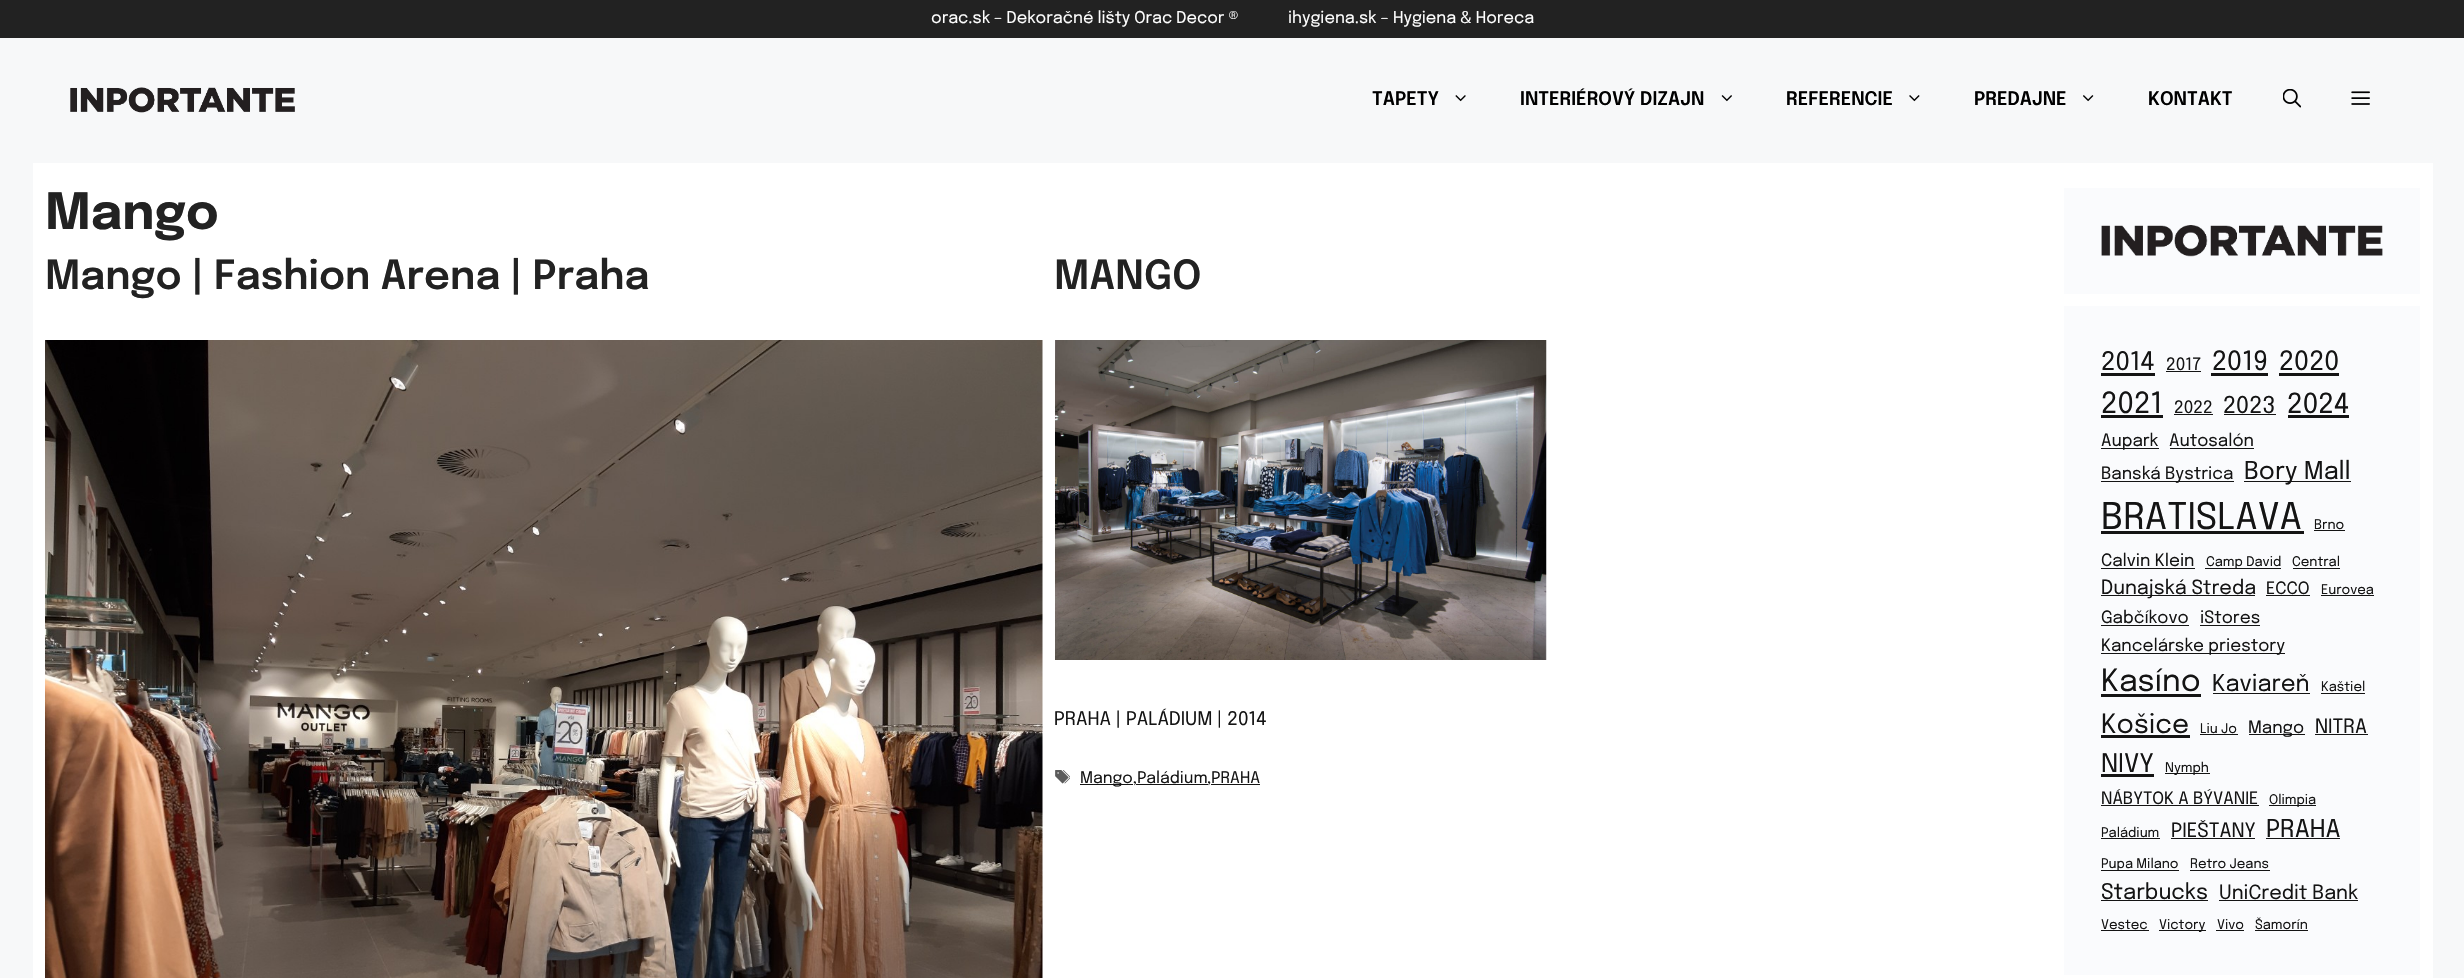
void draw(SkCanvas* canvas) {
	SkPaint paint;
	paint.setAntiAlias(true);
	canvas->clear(0xfff7f8f9);
	paint.setColor(0xff222222);
	canvas->drawRect(SkRect::MakeXYWH(0, 0, 2464, 38), paint);
	SkFont f1(fontMgr->matchFamilyStyle("Epilogue", SkFontStyle::Normal()), 16.25);
	f1.setSubpixel(true);
	paint.setColor(0xffffffff);
	canvas->drawString("orac.sk – Dekoračné lišty Orac Decor ®", 931, 23, f1, paint);
	canvas->drawString("ihygiena.sk – Hygiena & Horeca", 1288, 23, f1, paint);
	canvas->drawImageRect(SkImages::DeferredFromEncodedData(SkData::MakeFromFileName("img1.png")), SkRect::MakeXYWH(70, 87, 225, 26), SkSamplingOptions());
	SkFont f2(fontMgr->matchFamilyStyle("Epilogue", SkFontStyle(600, SkFontStyle::kNormal_Width, SkFontStyle::kUpright_Slant)), 18.75);
	f2.setSubpixel(true);
	paint.setColor(0xff000000);
	canvas->drawString("TAPETY", 1372, 105, f2, paint);
	canvas->drawImageRect(SkImages::DeferredFromEncodedData(SkData::MakeFromFileName("img2.png")), SkRect::MakeXYWH(1455, 95, 11, 7), SkSamplingOptions());
	canvas->drawString("INTERIÉROVÝ DIZAJN", 1520, 105, f2, paint);
	canvas->drawImageRect(SkImages::DeferredFromEncodedData(SkData::MakeFromFileName("img3.png")), SkRect::MakeXYWH(1721, 95, 11, 7), SkSamplingOptions());
	canvas->drawString("REFERENCIE", 1786, 105, f2, paint);
	canvas->drawImageRect(SkImages::DeferredFromEncodedData(SkData::MakeFromFileName("img4.png")), SkRect::MakeXYWH(1909, 95, 11, 7), SkSamplingOptions());
	canvas->drawString("PREDAJNE", 1974, 105, f2, paint);
	canvas->drawImageRect(SkImages::DeferredFromEncodedData(SkData::MakeFromFileName("img5.png")), SkRect::MakeXYWH(2083, 95, 11, 7), SkSamplingOptions());
	canvas->drawString("KONTAKT", 2148, 105, f2, paint);
	canvas->drawImageRect(SkImages::DeferredFromEncodedData(SkData::MakeFromFileName("img6.png")), SkRect::MakeXYWH(2283, 89, 18, 19), SkSamplingOptions());
	canvas->drawImageRect(SkImages::DeferredFromEncodedData(SkData::MakeFromFileName("img7.png")), SkRect::MakeXYWH(2351, 91, 19, 14), SkSamplingOptions());
	paint.setColor(0xffffffff);
	canvas->drawRect(SkRect::MakeXYWH(33, 163, 2400, 815), paint);
	SkFont f3(fontMgr->matchFamilyStyle("Epilogue", SkFontStyle::Bold()), 50);
	f3.setSubpixel(true);
	paint.setColor(0xff222222);
	canvas->drawString("Mango", 45, 229, f3, paint);
	SkFont f4(fontMgr->matchFamilyStyle("Epilogue", SkFontStyle(600, SkFontStyle::kNormal_Width, SkFontStyle::kUpright_Slant)), 40);
	f4.setSubpixel(true);
	canvas->drawString("Mango | Fashion Arena | Praha", 45, 289, f4, paint);
	canvas->drawImageRect(SkImages::DeferredFromEncodedData(SkData::MakeFromFileName("img8.png")), SkRect::MakeXYWH(45, 340, 998, 638), SkSamplingOptions());
	canvas->drawString("MANGO", 1054, 289, f4, paint);
	canvas->drawImageRect(SkImages::DeferredFromEncodedData(SkData::MakeFromFileName("img9.png")), SkRect::MakeXYWH(1055, 340, 492, 320), SkSamplingOptions());
	SkFont f5(fontMgr->matchFamilyStyle("Epilogue", SkFontStyle::Normal()), 18.75);
	f5.setSubpixel(true);
	paint.setColor(0xff141414);
	canvas->drawString("PRAHA | PALÁDIUM | 2014", 1054, 725, f5, paint);
	canvas->drawImageRect(SkImages::DeferredFromEncodedData(SkData::MakeFromFileName("img10.png")), SkRect::MakeXYWH(1055, 770, 15, 14), SkSamplingOptions());
	canvas->drawRect(SkRect::MakeXYWH(1080, 784, 53, 1), paint);
	SkFont f6(fontMgr->matchFamilyStyle("Epilogue", SkFontStyle::Normal()), 16);
	f6.setSubpixel(true);
	canvas->drawString("Mango,Paládium", 1080, 783, f6, paint);
	canvas->drawRect(SkRect::MakeXYWH(1136, 784, 72, 1), paint);
	canvas->drawString(",PRAHA", 1207, 783, f6, paint);
	canvas->drawRect(SkRect::MakeXYWH(1211, 784, 49, 1), paint);
	paint.setColor(0xfffafbfd);
	canvas->drawRect(SkRect::MakeXYWH(2064, 188, 356, 106), paint);
	canvas->drawImageRect(SkImages::DeferredFromEncodedData(SkData::MakeFromFileName("img11.png")), SkRect::MakeXYWH(2101, 225, 282, 32), SkSamplingOptions());
	canvas->drawRect(SkRect::MakeXYWH(2064, 306, 356, 669), paint);
	SkFont f7(fontMgr->matchFamilyStyle("Epilogue", SkFontStyle::Normal()), 25.5);
	f7.setSubpixel(true);
	paint.setColor(0xff141414);
	canvas->drawString("2014", 2101, 370, f7, paint);
	canvas->drawRect(SkRect::MakeXYWH(2101, 373, 54, 3), paint);
	SkFont f8(fontMgr->matchFamilyStyle("Epilogue", SkFontStyle::Normal()), 17);
	f8.setSubpixel(true);
	canvas->drawString("2017", 2166, 370, f8, paint);
	canvas->drawRect(SkRect::MakeXYWH(2166, 371, 35, 1), paint);
	SkFont f9(fontMgr->matchFamilyStyle("Epilogue", SkFontStyle::Normal()), 26.5);
	f9.setSubpixel(true);
	canvas->drawString("2019", 2212, 370, f9, paint);
	canvas->drawRect(SkRect::MakeXYWH(2211, 373, 57, 3), paint);
	canvas->drawString("2020", 2279, 370, f9, paint);
	canvas->drawRect(SkRect::MakeXYWH(2279, 373, 60, 3), paint);
	SkFont f10(fontMgr->matchFamilyStyle("Epilogue", SkFontStyle::Normal()), 29);
	f10.setSubpixel(true);
	canvas->drawString("2021", 2101, 413, f10, paint);
	canvas->drawRect(SkRect::MakeXYWH(2101, 415, 62, 3), paint);
	canvas->drawString("2022", 2174, 413, f8, paint);
	canvas->drawRect(SkRect::MakeXYWH(2174, 414, 39, 1), paint);
	SkFont f11(fontMgr->matchFamilyStyle("Epilogue", SkFontStyle::Normal()), 23);
	f11.setSubpixel(true);
	canvas->drawString("2023", 2223, 413, f11, paint);
	canvas->drawRect(SkRect::MakeXYWH(2224, 414, 52, 1), paint);
	SkFont f12(fontMgr->matchFamilyStyle("Epilogue", SkFontStyle::Normal()), 27.5);
	f12.setSubpixel(true);
	canvas->drawString("2024", 2287, 413, f12, paint);
	canvas->drawRect(SkRect::MakeXYWH(2288, 415, 61, 3), paint);
	canvas->drawRect(SkRect::MakeXYWH(2101, 448, 58, 1), paint);
	canvas->drawString("Aupark", 2101, 446, f8, paint);
	canvas->drawString("Autosalón", 2169, 446, f8, paint);
	canvas->drawRect(SkRect::MakeXYWH(2170, 448, 84, 1), paint);
	canvas->drawRect(SkRect::MakeXYWH(2101, 481, 133, 1), paint);
	canvas->drawString("Banská Bystrica", 2101, 479, f8, paint);
	canvas->drawRect(SkRect::MakeXYWH(2244, 481, 107, 1), paint);
	SkFont f13(fontMgr->matchFamilyStyle("Epilogue", SkFontStyle::Normal()), 24.5);
	f13.setSubpixel(true);
	canvas->drawString("Bory Mall", 2244, 479, f13, paint);
	SkFont f14(fontMgr->matchFamilyStyle("Epilogue", SkFontStyle::Normal()), 36.5);
	f14.setSubpixel(true);
	canvas->drawString("BRATISLAVA", 2101, 529, f14, paint);
	canvas->drawRect(SkRect::MakeXYWH(2101, 531, 203, 3), paint);
	SkFont f15(fontMgr->matchFamilyStyle("Epilogue", SkFontStyle::Normal()), 13.25);
	f15.setSubpixel(true);
	canvas->drawString("Brno", 2314, 529, f15, paint);
	canvas->drawRect(SkRect::MakeXYWH(2314, 530, 31, 1), paint);
	canvas->drawString("Calvin Klein", 2101, 566, f8, paint);
	canvas->drawRect(SkRect::MakeXYWH(2101, 568, 94, 1), paint);
	canvas->drawRect(SkRect::MakeXYWH(2205, 568, 76, 1), paint);
	canvas->drawString("Camp David", 2206, 566, f15, paint);
	canvas->drawString("Central", 2292, 566, f15, paint);
	canvas->drawRect(SkRect::MakeXYWH(2293, 568, 47, 1), paint);
	canvas->drawRect(SkRect::MakeXYWH(2101, 595, 154, 1), paint);
	SkFont f16(fontMgr->matchFamilyStyle("Epilogue", SkFontStyle::Normal()), 19.5);
	f16.setSubpixel(true);
	canvas->drawString("Dunajská Streda", 2101, 594, f16, paint);
	canvas->drawString("ECCO", 2266, 594, f8, paint);
	canvas->drawRect(SkRect::MakeXYWH(2266, 595, 44, 1), paint);
	canvas->drawString("Eurovea", 2321, 594, f15, paint);
	canvas->drawRect(SkRect::MakeXYWH(2321, 595, 53, 1), paint);
	canvas->drawString("Gabčíkovo", 2101, 623, f8, paint);
	canvas->drawRect(SkRect::MakeXYWH(2101, 625, 88, 1), paint);
	canvas->drawString("iStores", 2200, 623, f8, paint);
	canvas->drawRect(SkRect::MakeXYWH(2200, 625, 60, 1), paint);
	canvas->drawRect(SkRect::MakeXYWH(2101, 653, 184, 1), paint);
	canvas->drawString("Kancelárske priestory", 2101, 651, f8, paint);
	SkFont f17(fontMgr->matchFamilyStyle("Epilogue", SkFontStyle::Normal()), 30.5);
	f17.setSubpixel(true);
	canvas->drawString("Kasíno", 2101, 691, f17, paint);
	canvas->drawRect(SkRect::MakeXYWH(2101, 694, 100, 3), paint);
	canvas->drawString("Kaviareň", 2212, 691, f11, paint);
	canvas->drawRect(SkRect::MakeXYWH(2213, 693, 97, 1), paint);
	canvas->drawString("Kaštiel", 2321, 691, f15, paint);
	canvas->drawRect(SkRect::MakeXYWH(2321, 693, 44, 1), paint);
	canvas->drawString("Košice", 2101, 733, f9, paint);
	canvas->drawRect(SkRect::MakeXYWH(2101, 735, 89, 3), paint);
	canvas->drawString("Liu Jo", 2200, 733, f15, paint);
	canvas->drawRect(SkRect::MakeXYWH(2200, 734, 38, 1), paint);
	canvas->drawRect(SkRect::MakeXYWH(2249, 734, 56, 1), paint);
	canvas->drawString("Mango", 2248, 733, f8, paint);
	canvas->drawString("NITRA", 2315, 733, f16, paint);
	canvas->drawRect(SkRect::MakeXYWH(2315, 734, 53, 1), paint);
	canvas->drawString("NIVY", 2101, 772, f7, paint);
	canvas->drawRect(SkRect::MakeXYWH(2101, 774, 53, 3), paint);
	canvas->drawRect(SkRect::MakeXYWH(2165, 773, 45, 1), paint);
	canvas->drawString("Nymph", 2165, 772, f15, paint);
	canvas->drawString("NÁBYTOK A BÝVANIE", 2101, 804, f8, paint);
	canvas->drawRect(SkRect::MakeXYWH(2101, 805, 158, 1), paint);
	canvas->drawRect(SkRect::MakeXYWH(2269, 805, 47, 1), paint);
	canvas->drawString("Olimpia", 2269, 804, f15, paint);
	canvas->drawString("Paládium", 2101, 837, f15, paint);
	canvas->drawRect(SkRect::MakeXYWH(2101, 838, 59, 1), paint);
	canvas->drawString("PIEŠTANY", 2171, 837, f16, paint);
	canvas->drawRect(SkRect::MakeXYWH(2171, 838, 84, 1), paint);
	canvas->drawString("PRAHA", 2266, 837, f13, paint);
	canvas->drawRect(SkRect::MakeXYWH(2266, 838, 74, 1), paint);
	canvas->drawRect(SkRect::MakeXYWH(2101, 870, 78, 1), paint);
	canvas->drawString("Pupa Milano", 2101, 868, f15, paint);
	canvas->drawString("Retro Jeans", 2190, 868, f15, paint);
	canvas->drawRect(SkRect::MakeXYWH(2190, 870, 80, 1), paint);
	SkFont f18(fontMgr->matchFamilyStyle("Epilogue", SkFontStyle::Normal()), 21.5);
	f18.setSubpixel(true);
	canvas->drawString("Starbucks", 2101, 899, f18, paint);
	canvas->drawRect(SkRect::MakeXYWH(2101, 900, 107, 1), paint);
	canvas->drawString("UniCredit Bank", 2219, 899, f16, paint);
	canvas->drawRect(SkRect::MakeXYWH(2219, 900, 139, 1), paint);
	canvas->drawString("Vestec", 2101, 929, f15, paint);
	canvas->drawRect(SkRect::MakeXYWH(2101, 930, 48, 1), paint);
	canvas->drawRect(SkRect::MakeXYWH(2159, 930, 47, 1), paint);
	canvas->drawString("Victory", 2159, 929, f15, paint);
	canvas->drawString("Vivo", 2217, 929, f15, paint);
	canvas->drawRect(SkRect::MakeXYWH(2216, 930, 28, 1), paint);
	canvas->drawString("Šamorín", 2255, 929, f15, paint);
	canvas->drawRect(SkRect::MakeXYWH(2255, 930, 53, 1), paint);
}
